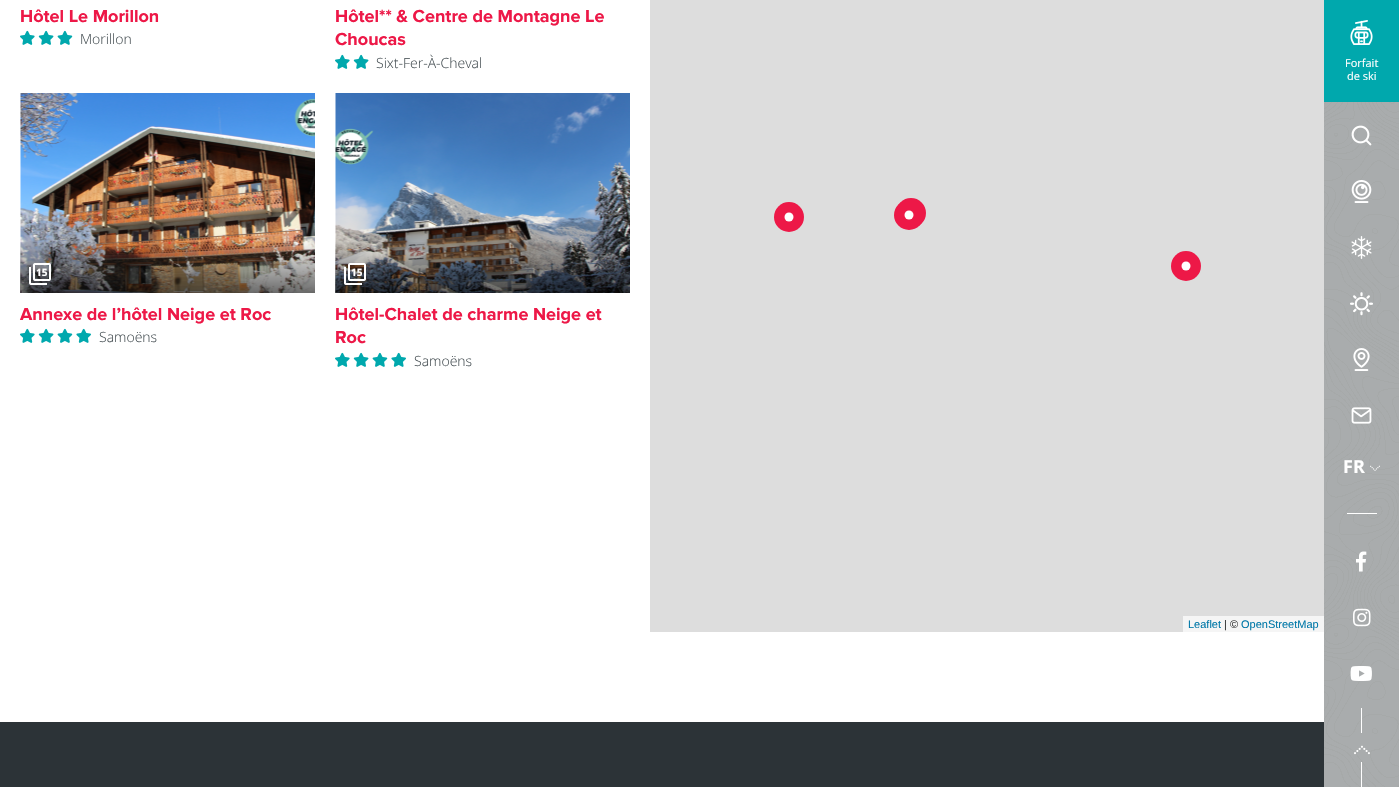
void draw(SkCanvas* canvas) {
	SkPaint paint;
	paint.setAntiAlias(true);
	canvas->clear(0xffffffff);
	SkFont f1(fontMgr->matchFamilyStyle("Proxima Nova", SkFontStyle::Bold()), 18);
	f1.setSubpixel(true);
	paint.setColor(0xffed1847);
	canvas->drawString("Hôtel Le Morillon", 20, 22, f1, paint);
	canvas->drawImageRect(SkImages::DeferredFromEncodedData(SkData::MakeFromFileName("img1.png")), SkRect::MakeXYWH(20, 30, 53, 15), SkSamplingOptions());
	SkFont f2(fontMgr->matchFamilyStyle("Open Sans", SkFontStyle(300, SkFontStyle::kNormal_Width, SkFontStyle::kUpright_Slant)), 14);
	f2.setSubpixel(true);
	paint.setColor(0xff485155);
	canvas->drawString("Morillon", 80, 44, f2, paint);
	paint.setColor(0xffed1847);
	canvas->drawString("Hôtel** & Centre de Montagne Le", 335, 22, f1, paint);
	canvas->drawString("Choucas", 335, 45, f1, paint);
	canvas->drawImageRect(SkImages::DeferredFromEncodedData(SkData::MakeFromFileName("img2.png")), SkRect::MakeXYWH(335, 54, 34, 15), SkSamplingOptions());
	paint.setColor(0xff485155);
	canvas->drawString("Sixt-Fer-À-Cheval", 376, 68, f2, paint);
	canvas->drawImageRect(SkImages::DeferredFromEncodedData(SkData::MakeFromFileName("img3.png")), SkRect::MakeXYWH(20, 93, 295, 200), SkSamplingOptions());
	{
		const SkColor colors[] = {0x00000000, 0xcc000000};
		const float stops[] = {0, 1};
		const SkPoint ends[] = {{168, 240}, {168, 313}};
		paint.setShader(SkGradientShader::MakeLinear(ends, colors, stops, 2, SkTileMode::kClamp));
		paint.setAlpha(255);
	}
	canvas->drawRect(SkRect::MakeXYWH(20, 242, 295, 51), paint);
	SkFont f3(fontMgr->matchFamilyStyle("Open Sans", SkFontStyle::Bold()), 10);
	f3.setSubpixel(true);
	paint.setShader(nullptr);
	paint.setColor(0xffffffff);
	canvas->drawString("15", 36, 276, f3, paint);
	canvas->drawImageRect(SkImages::DeferredFromEncodedData(SkData::MakeFromFileName("img4.png")), SkRect::MakeXYWH(29, 263, 22, 22), SkSamplingOptions());
	paint.setColor(0xffed1847);
	canvas->drawString("Annexe de l’hôtel Neige et Roc", 20, 320, f1, paint);
	canvas->drawImageRect(SkImages::DeferredFromEncodedData(SkData::MakeFromFileName("img5.png")), SkRect::MakeXYWH(20, 328, 71, 15), SkSamplingOptions());
	paint.setColor(0xff485155);
	canvas->drawString("Samoëns", 99, 342, f2, paint);
	canvas->drawImageRect(SkImages::DeferredFromEncodedData(SkData::MakeFromFileName("img6.png")), SkRect::MakeXYWH(335, 93, 295, 200), SkSamplingOptions());
	{
		const SkColor colors[] = {0x00000000, 0xcc000000};
		const float stops[] = {0, 1};
		const SkPoint ends[] = {{483, 240}, {483, 313}};
		paint.setShader(SkGradientShader::MakeLinear(ends, colors, stops, 2, SkTileMode::kClamp));
		paint.setAlpha(255);
	}
	canvas->drawRect(SkRect::MakeXYWH(335, 242, 295, 51), paint);
	paint.setShader(nullptr);
	paint.setColor(0xffffffff);
	canvas->drawString("15", 351, 276, f3, paint);
	canvas->drawImageRect(SkImages::DeferredFromEncodedData(SkData::MakeFromFileName("img7.png")), SkRect::MakeXYWH(344, 263, 22, 22), SkSamplingOptions());
	paint.setColor(0xffed1847);
	canvas->drawString("Hôtel-Chalet de charme Neige et", 335, 320, f1, paint);
	canvas->drawString("Roc", 335, 343, f1, paint);
	canvas->drawImageRect(SkImages::DeferredFromEncodedData(SkData::MakeFromFileName("img5.png")), SkRect::MakeXYWH(335, 352, 71, 15), SkSamplingOptions());
	paint.setColor(0xff485155);
	canvas->drawString("Samoëns", 414, 366, f2, paint);
	paint.setColor(0xffdddddd);
	canvas->drawRect(SkRect::MakeXYWH(650, 0, 674, 632), paint);
	paint.setColor(0xffed1847);
	canvas->drawCircle(911, 213, 15, paint);
	canvas->drawCircle(789, 217, 15, paint);
	paint.setColor(0xffffffff);
	canvas->drawCircle(789, 217, 4.5, paint);
	paint.setColor(0xffed1847);
	canvas->drawCircle(909, 215, 15, paint);
	paint.setColor(0xffffffff);
	canvas->drawCircle(909, 215, 4.5, paint);
	paint.setColor(0xffed1847);
	canvas->drawCircle(1186, 266, 15, paint);
	paint.setColor(0xffffffff);
	canvas->drawCircle(1186, 266, 4.5, paint);
	paint.setColor(0xfff5f5f5);
	canvas->drawRect(SkRect::MakeXYWH(1183, 616, 141, 16), paint);
	SkFont f4(fontMgr->matchFamilyStyle("Liberation Sans", SkFontStyle::Normal()), 11);
	f4.setSubpixel(true);
	paint.setColor(0xff0078a8);
	canvas->drawString("Leaflet", 1188, 628, f4, paint);
	paint.setColor(0xff333333);
	canvas->drawString("| ©", 1224, 628, f4, paint);
	paint.setColor(0xff0078a8);
	canvas->drawString("OpenStreetMap", 1241, 628, f4, paint);
	paint.setColor(0xff2c3337);
	canvas->drawRect(SkRect::MakeXYWH(0, 722, 1324, 65), paint);
	canvas->drawImageRect(SkImages::DeferredFromEncodedData(SkData::MakeFromFileName("img8.png")), SkRect::MakeXYWH(1324, 102, 75, 685), SkSamplingOptions());
	paint.setColor(0xff00a8ad);
	canvas->drawRect(SkRect::MakeXYWH(1324, 0, 75, 102), paint);
	canvas->drawImageRect(SkImages::DeferredFromEncodedData(SkData::MakeFromFileName("img9.png")), SkRect::MakeXYWH(1350, 20, 23, 25), SkSamplingOptions());
	SkFont f5(fontMgr->matchFamilyStyle("Open Sans", SkFontStyle::Normal()), 11);
	f5.setSubpixel(true);
	paint.setColor(0xffffffff);
	canvas->drawString("Forfait", 1345, 67, f5, paint);
	canvas->drawString("de ski", 1347, 80, f5, paint);
	canvas->drawImageRect(SkImages::DeferredFromEncodedData(SkData::MakeFromFileName("img10.png")), SkRect::MakeXYWH(1351, 125, 21, 21), SkSamplingOptions());
	canvas->drawImageRect(SkImages::DeferredFromEncodedData(SkData::MakeFromFileName("img11.png")), SkRect::MakeXYWH(1351, 180, 21, 23), SkSamplingOptions());
	canvas->drawImageRect(SkImages::DeferredFromEncodedData(SkData::MakeFromFileName("img12.png")), SkRect::MakeXYWH(1351, 236, 21, 23), SkSamplingOptions());
	canvas->drawImageRect(SkImages::DeferredFromEncodedData(SkData::MakeFromFileName("img13.png")), SkRect::MakeXYWH(1350, 292, 23, 24), SkSamplingOptions());
	canvas->drawImageRect(SkImages::DeferredFromEncodedData(SkData::MakeFromFileName("img14.png")), SkRect::MakeXYWH(1353, 348, 17, 23), SkSamplingOptions());
	canvas->drawImageRect(SkImages::DeferredFromEncodedData(SkData::MakeFromFileName("img15.png")), SkRect::MakeXYWH(1351, 407, 21, 17), SkSamplingOptions());
	SkFont f6(fontMgr->matchFamilyStyle("Open Sans", SkFontStyle::Bold()), 18);
	f6.setSubpixel(true);
	canvas->drawString("FR", 1343, 473, f6, paint);
	canvas->drawImageRect(SkImages::DeferredFromEncodedData(SkData::MakeFromFileName("img16.png")), SkRect::MakeXYWH(1370, 465, 10, 6), SkSamplingOptions());
	canvas->drawRect(SkRect::MakeXYWH(1347, 513, 30, 1), paint);
	canvas->drawImageRect(SkImages::DeferredFromEncodedData(SkData::MakeFromFileName("img17.png")), SkRect::MakeXYWH(1356, 551, 11, 21), SkSamplingOptions());
	canvas->drawImageRect(SkImages::DeferredFromEncodedData(SkData::MakeFromFileName("img18.png")), SkRect::MakeXYWH(1353, 608, 18, 19), SkSamplingOptions());
	canvas->drawImageRect(SkImages::DeferredFromEncodedData(SkData::MakeFromFileName("img19.png")), SkRect::MakeXYWH(1350, 666, 22, 15), SkSamplingOptions());
	canvas->drawRect(SkRect::MakeXYWH(1361, 708, 1, 25), paint);
	canvas->drawImageRect(SkImages::DeferredFromEncodedData(SkData::MakeFromFileName("img20.png")), SkRect::MakeXYWH(1354, 745, 16, 10), SkSamplingOptions());
	canvas->drawRect(SkRect::MakeXYWH(1361, 762, 1, 25), paint);
}
